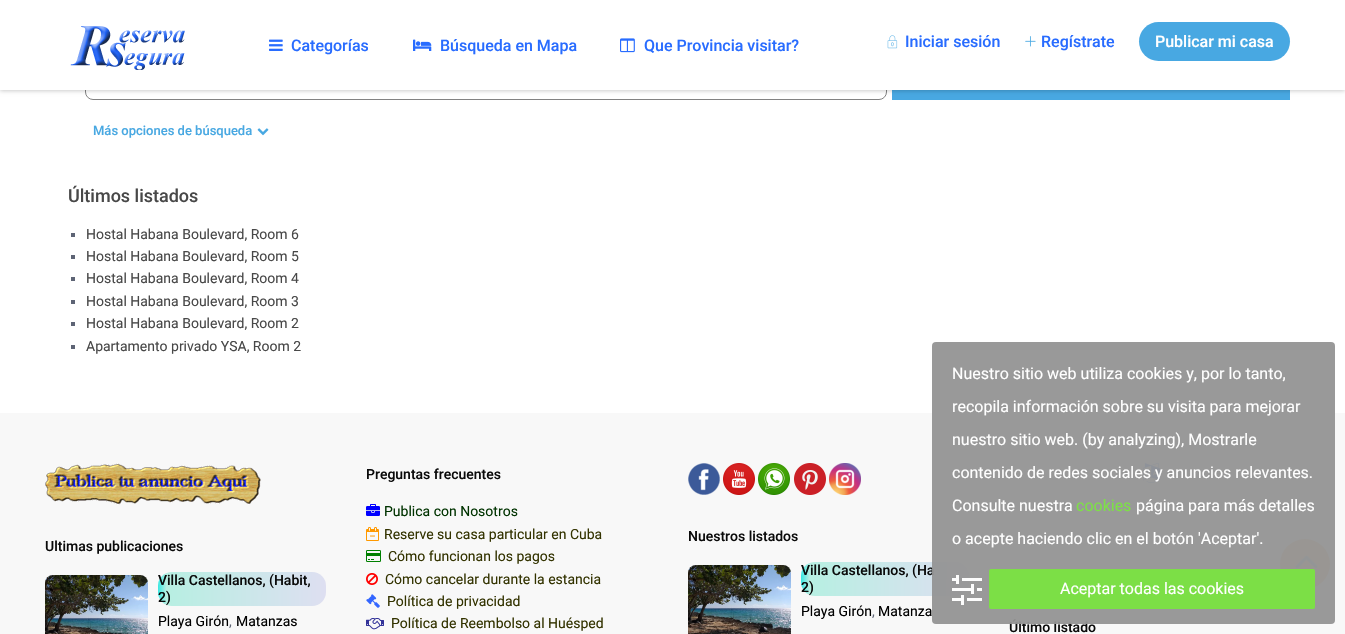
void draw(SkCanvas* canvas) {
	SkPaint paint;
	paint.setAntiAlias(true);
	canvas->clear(0xffffffff);
	paint.setStroke(true);
	paint.setStrokeWidth(1);
	paint.setColor(0xff828282);
	canvas->drawRoundRect(SkRect::MakeXYWH(85.5, 52.5, 801, 47), 7.5, 7.5, paint);
	paint.setStroke(false);
	paint.setColor(0xff48a8e2);
	canvas->drawRect(SkRect::MakeXYWH(892, 90, 398, 10), paint);
	paint.setColor(0x33000000);
	paint.setMaskFilter(SkMaskFilter::MakeBlur(kNormal_SkBlurStyle, 2));
	canvas->drawRect(SkRect::MakeXYWH(0, 1, 1345, 90), paint);
	paint.setMaskFilter(nullptr);
	paint.setColor(0xffffffff);
	canvas->drawRect(SkRect::MakeXYWH(0, 0, 1345, 90), paint);
	canvas->drawImageRect(SkImages::DeferredFromEncodedData(SkData::MakeFromFileName("img1.png")), SkRect::MakeXYWH(70, 26, 115, 44), SkSamplingOptions());
	canvas->drawImageRect(SkImages::DeferredFromEncodedData(SkData::MakeFromFileName("img2.png")), SkRect::MakeXYWH(269, 39, 14, 12), SkSamplingOptions());
	SkFont f1(fontMgr->matchFamilyStyle("Roboto", SkFontStyle(500, SkFontStyle::kNormal_Width, SkFontStyle::kUpright_Slant)), 16);
	f1.setSubpixel(true);
	paint.setColor(0xff286cff);
	canvas->drawString("Categorías", 291, 51, f1, paint);
	canvas->drawImageRect(SkImages::DeferredFromEncodedData(SkData::MakeFromFileName("img3.png")), SkRect::MakeXYWH(413, 39, 19, 12), SkSamplingOptions());
	canvas->drawString("Búsqueda en Mapa", 440, 51, f1, paint);
	canvas->drawImageRect(SkImages::DeferredFromEncodedData(SkData::MakeFromFileName("img4.png")), SkRect::MakeXYWH(620, 38, 15, 15), SkSamplingOptions());
	canvas->drawString("Que Provincia visitar?", 644, 51, f1, paint);
	canvas->drawImageRect(SkImages::DeferredFromEncodedData(SkData::MakeFromFileName("img5.png")), SkRect::MakeXYWH(887, 35, 11, 14), SkSamplingOptions());
	canvas->drawString("Iniciar sesión", 905, 47, f1, paint);
	canvas->drawImageRect(SkImages::DeferredFromEncodedData(SkData::MakeFromFileName("img6.png")), SkRect::MakeXYWH(1025, 36, 11, 11), SkSamplingOptions());
	canvas->drawString("Regístrate", 1041, 47, f1, paint);
	paint.setColor(0xff48a8e2);
	canvas->drawRoundRect(SkRect::MakeXYWH(1139, 22, 151, 39), 19.5, 19.5, paint);
	paint.setColor(0xffffffff);
	canvas->drawString("Publicar mi casa", 1155, 47, f1, paint);
	SkFont f2(fontMgr->matchFamilyStyle("Roboto", SkFontStyle(500, SkFontStyle::kNormal_Width, SkFontStyle::kUpright_Slant)), 13);
	f2.setSubpixel(true);
	paint.setColor(0xff48a8e2);
	canvas->drawString("Más opciones de búsqueda", 93, 135, f2, paint);
	canvas->drawImageRect(SkImages::DeferredFromEncodedData(SkData::MakeFromFileName("img7.png")), SkRect::MakeXYWH(257, 128, 12, 8), SkSamplingOptions());
	SkFont f3(fontMgr->matchFamilyStyle("Roboto", SkFontStyle(500, SkFontStyle::kNormal_Width, SkFontStyle::kUpright_Slant)), 18);
	f3.setSubpixel(true);
	paint.setColor(0xff484848);
	canvas->drawString("Últimos listados", 68, 202, f3, paint);
	paint.setColor(0xff5d6475);
	canvas->drawRect(SkRect::MakeXYWH(71, 233, 4, 4), paint);
	SkFont f4(fontMgr->matchFamilyStyle("Roboto", SkFontStyle::Normal()), 14);
	f4.setSubpixel(true);
	paint.setColor(0xff484848);
	canvas->drawString("Hostal Habana Boulevard, Room 6", 86, 239, f4, paint);
	paint.setColor(0xff5d6475);
	canvas->drawRect(SkRect::MakeXYWH(71, 255, 4, 4), paint);
	paint.setColor(0xff484848);
	canvas->drawString("Hostal Habana Boulevard, Room 5", 86, 261, f4, paint);
	paint.setColor(0xff5d6475);
	canvas->drawRect(SkRect::MakeXYWH(71, 277, 4, 4), paint);
	paint.setColor(0xff484848);
	canvas->drawString("Hostal Habana Boulevard, Room 4", 86, 283, f4, paint);
	paint.setColor(0xff5d6475);
	canvas->drawRect(SkRect::MakeXYWH(71, 300, 4, 4), paint);
	paint.setColor(0xff484848);
	canvas->drawString("Hostal Habana Boulevard, Room 3", 86, 306, f4, paint);
	paint.setColor(0xff5d6475);
	canvas->drawRect(SkRect::MakeXYWH(71, 322, 4, 4), paint);
	paint.setColor(0xff484848);
	canvas->drawString("Hostal Habana Boulevard, Room 2", 86, 328, f4, paint);
	paint.setColor(0xff5d6475);
	canvas->drawRect(SkRect::MakeXYWH(71, 345, 4, 4), paint);
	paint.setColor(0xff484848);
	canvas->drawString("Apartamento privado YSA, Room 2", 86, 351, f4, paint);
	paint.setColor(0xfff8f8f8);
	canvas->drawRect(SkRect::MakeXYWH(0, 413, 1345, 221), paint);
	canvas->drawImageRect(SkImages::DeferredFromEncodedData(SkData::MakeFromFileName("img8.png")), SkRect::MakeXYWH(45, 463, 216, 42), SkSamplingOptions());
	SkFont f5(fontMgr->matchFamilyStyle("Roboto", SkFontStyle(500, SkFontStyle::kNormal_Width, SkFontStyle::kUpright_Slant)), 14);
	f5.setSubpixel(true);
	paint.setColor(0xff0a0a0a);
	canvas->drawString("Ultimas publicaciones", 45, 551, f5, paint);
	canvas->drawImageRect(SkImages::DeferredFromEncodedData(SkData::MakeFromFileName("img9.png")), SkRect::MakeXYWH(45, 575, 103, 59), SkSamplingOptions());
	{
		const SkColor colors[] = {0xffdedff1, 0xffb7efe2, 0xff37e8e2};
		const float stops[] = {0, 0.95, 1};
		const SkPoint ends[] = {{326, 590}, {158, 588}};
		paint.setShader(SkGradientShader::MakeLinear(ends, colors, stops, 3, SkTileMode::kClamp));
		paint.setAlpha(255);
	}
	canvas->drawRoundRect(SkRect::MakeXYWH(158, 572, 168, 34), 14, 14, paint);
	paint.setShader(nullptr);
	paint.setColor(0xff0a0a0a);
	canvas->drawString("Villa Castellanos, (Habit,", 158, 585, f5, paint);
	canvas->drawString("2)", 158, 602, f5, paint);
	paint.setColor(0xff000000);
	canvas->drawString("Playa Girón", 158, 626, f4, paint);
	paint.setColor(0xff5d6475);
	canvas->drawString(",", 229, 626, f4, paint);
	paint.setColor(0xff000000);
	canvas->drawString("Matanzas", 236, 626, f4, paint);
	paint.setColor(0xff0a0a0a);
	canvas->drawString("Preguntas frecuentes", 366, 479, f5, paint);
	canvas->drawImageRect(SkImages::DeferredFromEncodedData(SkData::MakeFromFileName("img10.png")), SkRect::MakeXYWH(366, 504, 14, 12), SkSamplingOptions());
	paint.setColor(0xff003300);
	canvas->drawString("Publica con Nosotros", 384, 516, f4, paint);
	canvas->drawImageRect(SkImages::DeferredFromEncodedData(SkData::MakeFromFileName("img11.png")), SkRect::MakeXYWH(366, 527, 13, 14), SkSamplingOptions());
	paint.setColor(0xff333300);
	canvas->drawString("Reserve su casa particular en Cuba", 384, 539, f4, paint);
	canvas->drawImageRect(SkImages::DeferredFromEncodedData(SkData::MakeFromFileName("img12.png")), SkRect::MakeXYWH(366, 550, 15, 12), SkSamplingOptions());
	canvas->drawString("Cómo funcionan los pagos", 388, 561, f4, paint);
	canvas->drawImageRect(SkImages::DeferredFromEncodedData(SkData::MakeFromFileName("img13.png")), SkRect::MakeXYWH(366, 573, 12, 12), SkSamplingOptions());
	canvas->drawString("Cómo cancelar durante la estancia", 385, 584, f4, paint);
	canvas->drawImageRect(SkImages::DeferredFromEncodedData(SkData::MakeFromFileName("img14.png")), SkRect::MakeXYWH(366, 594, 14, 14), SkSamplingOptions());
	canvas->drawString("Política de privacidad", 387, 606, f4, paint);
	canvas->drawImageRect(SkImages::DeferredFromEncodedData(SkData::MakeFromFileName("img15.png")), SkRect::MakeXYWH(366, 618, 18, 12), SkSamplingOptions());
	canvas->drawString("Política de Reembolso al Huésped", 391, 628, f4, paint);
	canvas->drawImageRect(SkImages::DeferredFromEncodedData(SkData::MakeFromFileName("img16.png")), SkRect::MakeXYWH(688, 463, 32, 32), SkSamplingOptions());
	canvas->drawImageRect(SkImages::DeferredFromEncodedData(SkData::MakeFromFileName("img17.png")), SkRect::MakeXYWH(723, 463, 32, 32), SkSamplingOptions());
	canvas->drawImageRect(SkImages::DeferredFromEncodedData(SkData::MakeFromFileName("img18.png")), SkRect::MakeXYWH(758, 463, 32, 32), SkSamplingOptions());
	canvas->drawImageRect(SkImages::DeferredFromEncodedData(SkData::MakeFromFileName("img19.png")), SkRect::MakeXYWH(794, 463, 32, 32), SkSamplingOptions());
	canvas->drawImageRect(SkImages::DeferredFromEncodedData(SkData::MakeFromFileName("img20.png")), SkRect::MakeXYWH(829, 463, 32, 32), SkSamplingOptions());
	paint.setColor(0xff0a0a0a);
	canvas->drawString("Nuestros listados", 688, 541, f5, paint);
	canvas->drawImageRect(SkImages::DeferredFromEncodedData(SkData::MakeFromFileName("img21.png")), SkRect::MakeXYWH(688, 565, 103, 69), SkSamplingOptions());
	{
		const SkColor colors[] = {0xffdedff1, 0xffb7efe2, 0xff37e8e2};
		const float stops[] = {0, 0.95, 1};
		const SkPoint ends[] = {{969, 580}, {801, 578}};
		paint.setShader(SkGradientShader::MakeLinear(ends, colors, stops, 3, SkTileMode::kClamp));
		paint.setAlpha(255);
	}
	canvas->drawRoundRect(SkRect::MakeXYWH(801, 562, 168, 34), 14, 14, paint);
	paint.setShader(nullptr);
	paint.setColor(0xff0a0a0a);
	canvas->drawString("Villa Castellanos, (Ha", 801, 575, f5, paint);
	canvas->drawString("2)", 801, 592, f5, paint);
	paint.setColor(0xff000000);
	canvas->drawString("Playa Girón", 801, 616, f4, paint);
	paint.setColor(0xff5d6475);
	canvas->drawString(",", 872, 616, f4, paint);
	paint.setColor(0xff000000);
	canvas->drawString("Matanza", 878, 616, f4, paint);
	canvas->drawImageRect(SkImages::DeferredFromEncodedData(SkData::MakeFromFileName("img22.png")), SkRect::MakeXYWH(1143, 462, 18, 21), SkSamplingOptions());
	paint.setColor(0xff0a0a0a);
	canvas->drawString("Último listado", 1009, 632, f5, paint);
	paint.setColor(0xfff5c07c);
	canvas->drawCircle(1305, 564, 25, paint);
	canvas->drawImageRect(SkImages::DeferredFromEncodedData(SkData::MakeFromFileName("img24.png")), SkRect::MakeXYWH(1295, 555, 23, 14), SkSamplingOptions());
	paint.setColor(0xf2939393);
	canvas->drawRoundRect(SkRect::MakeXYWH(932, 342, 403, 282), 4, 4, paint);
	SkFont f6(fontMgr->matchFamilyStyle("Roboto", SkFontStyle::Normal()), 16);
	f6.setSubpixel(true);
	paint.setColor(0xffffffff);
	canvas->drawString("Nuestro sitio web utiliza cookies y, por lo tanto,", 952, 379, f6, paint);
	canvas->drawString("recopila información sobre su visita para mejorar", 952, 412, f6, paint);
	canvas->drawString("nuestro sitio web. (by analyzing), Mostrarle", 952, 445, f6, paint);
	canvas->drawString("contenido de redes sociales y anuncios relevantes.", 952, 478, f6, paint);
	canvas->drawString("Consulte nuestra", 952, 511, f6, paint);
	paint.setColor(0xff7de047);
	canvas->drawString("cookies", 1076, 511, f6, paint);
	paint.setColor(0xffffffff);
	canvas->drawString("página para más detalles", 1136, 511, f6, paint);
	canvas->drawString("o acepte haciendo clic en el botón 'Aceptar'.", 952, 544, f6, paint);
	canvas->drawImageRect(SkImages::DeferredFromEncodedData(SkData::MakeFromFileName("img23.png")), SkRect::MakeXYWH(952, 575, 30, 30), SkSamplingOptions());
	paint.setColor(0xff7cdf46);
	canvas->drawRoundRect(SkRect::MakeXYWH(989, 569, 326, 40), 2, 2, paint);
	paint.setColor(0xffffffff);
	canvas->drawString("Aceptar todas las cookies", 1060, 594, f6, paint);
}
